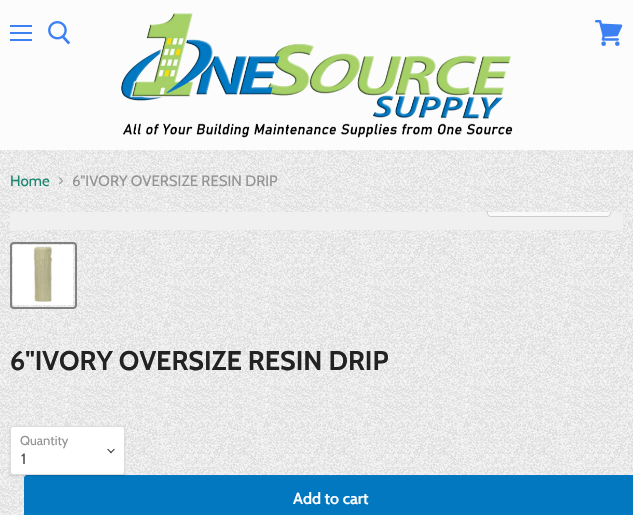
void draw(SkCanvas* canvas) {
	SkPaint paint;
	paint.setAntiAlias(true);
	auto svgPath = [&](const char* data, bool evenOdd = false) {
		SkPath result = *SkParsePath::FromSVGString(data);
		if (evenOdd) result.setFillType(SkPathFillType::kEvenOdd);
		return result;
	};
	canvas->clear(0xffffffff);
	canvas->drawImageRect(SkImages::DeferredFromEncodedData(SkData::MakeFromFileName("img1.png")), SkRect::MakeXYWH(0, 150, 633, 365), SkSamplingOptions());
	canvas->drawImageRect(SkImages::DeferredFromEncodedData(SkData::MakeFromFileName("img2.png")), SkRect::MakeXYWH(0, 150, 633, 365), SkSamplingOptions());
	paint.setColor(0xfffcfcfc);
	canvas->drawRect(SkRect::MakeXYWH(0, 0, 633, 150), paint);
	paint.setColor(0xff3c80f2);
	canvas->drawRect(SkRect::MakeXYWH(10, 25, 22, 2), paint);
	canvas->drawRect(SkRect::MakeXYWH(10, 32, 22, 2), paint);
	canvas->drawRect(SkRect::MakeXYWH(10, 39, 22, 2), paint);
	canvas->drawImageRect(SkImages::DeferredFromEncodedData(SkData::MakeFromFileName("img3.png")), SkRect::MakeXYWH(48, 21, 23, 24), SkSamplingOptions());
	canvas->drawImageRect(SkImages::DeferredFromEncodedData(SkData::MakeFromFileName("img4.png")), SkRect::MakeXYWH(121, 13, 392, 125), SkSamplingOptions());
	canvas->drawImageRect(SkImages::DeferredFromEncodedData(SkData::MakeFromFileName("img5.png")), SkRect::MakeXYWH(595, 20, 28, 26), SkSamplingOptions());
	SkFont f1(fontMgr->matchFamilyStyle("Cabin", SkFontStyle::Normal()), 15);
	f1.setSubpixel(true);
	paint.setColor(0xff1e8570);
	canvas->drawString("Home", 10, 186, f1, paint);
	canvas->drawImageRect(SkImages::DeferredFromEncodedData(SkData::MakeFromFileName("img6.png")), SkRect::MakeXYWH(59, 177, 4, 8), SkSamplingOptions());
	paint.setColor(0xff949494);
	canvas->drawString("6\"IVORY OVERSIZE RESIN DRIP", 72, 186, f1, paint);
	paint.setColor(0xfff0f0f0);
	canvas->drawRect(SkRect::MakeXYWH(10, 212, 613, 18), paint);
	canvas->save();
	canvas->clipRect(SkRect::MakeXYWH(10, 212, 613, 18));
	paint.setStroke(true);
	paint.setStrokeWidth(1);
	paint.setColor(0xffcccccc);
	canvas->drawRoundRect(SkRect::MakeXYWH(487.5, 188.5, 123, 28), 3.5, 3.5, paint);
	canvas->restore();
	paint.setStroke(false);
	paint.setColor(0xe6fafafa);
	canvas->drawPath(svgPath("M488 212H610V213C610 214.5 608.5 216 607 216H491C489.5 216 488 214.5 488 213Z"), paint);
	paint.setStroke(true);
	paint.setStrokeWidth(2);
	paint.setColor(0xff818181);
	canvas->drawRoundRect(SkRect::MakeXYWH(11, 243, 65, 65), 3, 3, paint);
	canvas->drawImageRect(SkImages::DeferredFromEncodedData(SkData::MakeFromFileName("img7.png")), SkRect::MakeXYWH(13, 245, 60, 60), SkSamplingOptions());
	SkFont f2(fontMgr->matchFamilyStyle("Cabin", SkFontStyle::Bold()), 27);
	f2.setSubpixel(true);
	paint.setStroke(false);
	paint.setColor(0xff222222);
	canvas->drawString("6\"IVORY OVERSIZE RESIN DRIP", 10, 370, f2, paint);
	paint.setColor(0xff0178c0);
	canvas->drawRoundRect(SkRect::MakeXYWH(24.5, 475.5, 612, 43), 2.5, 2.5, paint);
	paint.setStroke(true);
	paint.setStrokeWidth(1);
	canvas->drawRoundRect(SkRect::MakeXYWH(24.5, 475.5, 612, 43), 2.5, 2.5, paint);
	paint.setStroke(false);
	paint.setColor(0x26000000);
	paint.setMaskFilter(SkMaskFilter::MakeBlur(kNormal_SkBlurStyle, 1));
	canvas->drawRoundRect(SkRect::MakeXYWH(10, 427, 115, 49), 3, 3, paint);
	paint.setMaskFilter(nullptr);
	paint.setColor(0xffffffff);
	canvas->drawRoundRect(SkRect::MakeXYWH(10.5, 426.5, 114, 48), 2.5, 2.5, paint);
	paint.setStroke(true);
	paint.setColor(0xffdddddd);
	canvas->drawRoundRect(SkRect::MakeXYWH(10.5, 426.5, 114, 48), 2.5, 2.5, paint);
	SkFont f3(fontMgr->matchFamilyStyle("Cabin", SkFontStyle::Normal()), 13);
	f3.setSubpixel(true);
	paint.setStroke(false);
	paint.setColor(0xff949494);
	canvas->drawString("Quantity", 20, 445, f3, paint);
	canvas->drawImageRect(SkImages::DeferredFromEncodedData(SkData::MakeFromFileName("img8.png")), SkRect::MakeXYWH(107, 448, 8, 6), SkSamplingOptions());
	paint.setColor(0xff4d4d4d);
	canvas->drawString("1", 21, 464, f1, paint);
	SkFont f4(fontMgr->matchFamilyStyle("Cabin", SkFontStyle(600, SkFontStyle::kNormal_Width, SkFontStyle::kUpright_Slant)), 16);
	f4.setSubpixel(true);
	paint.setColor(0xffffffff);
	canvas->drawString("Add to cart", 293, 504, f4, paint);
}
